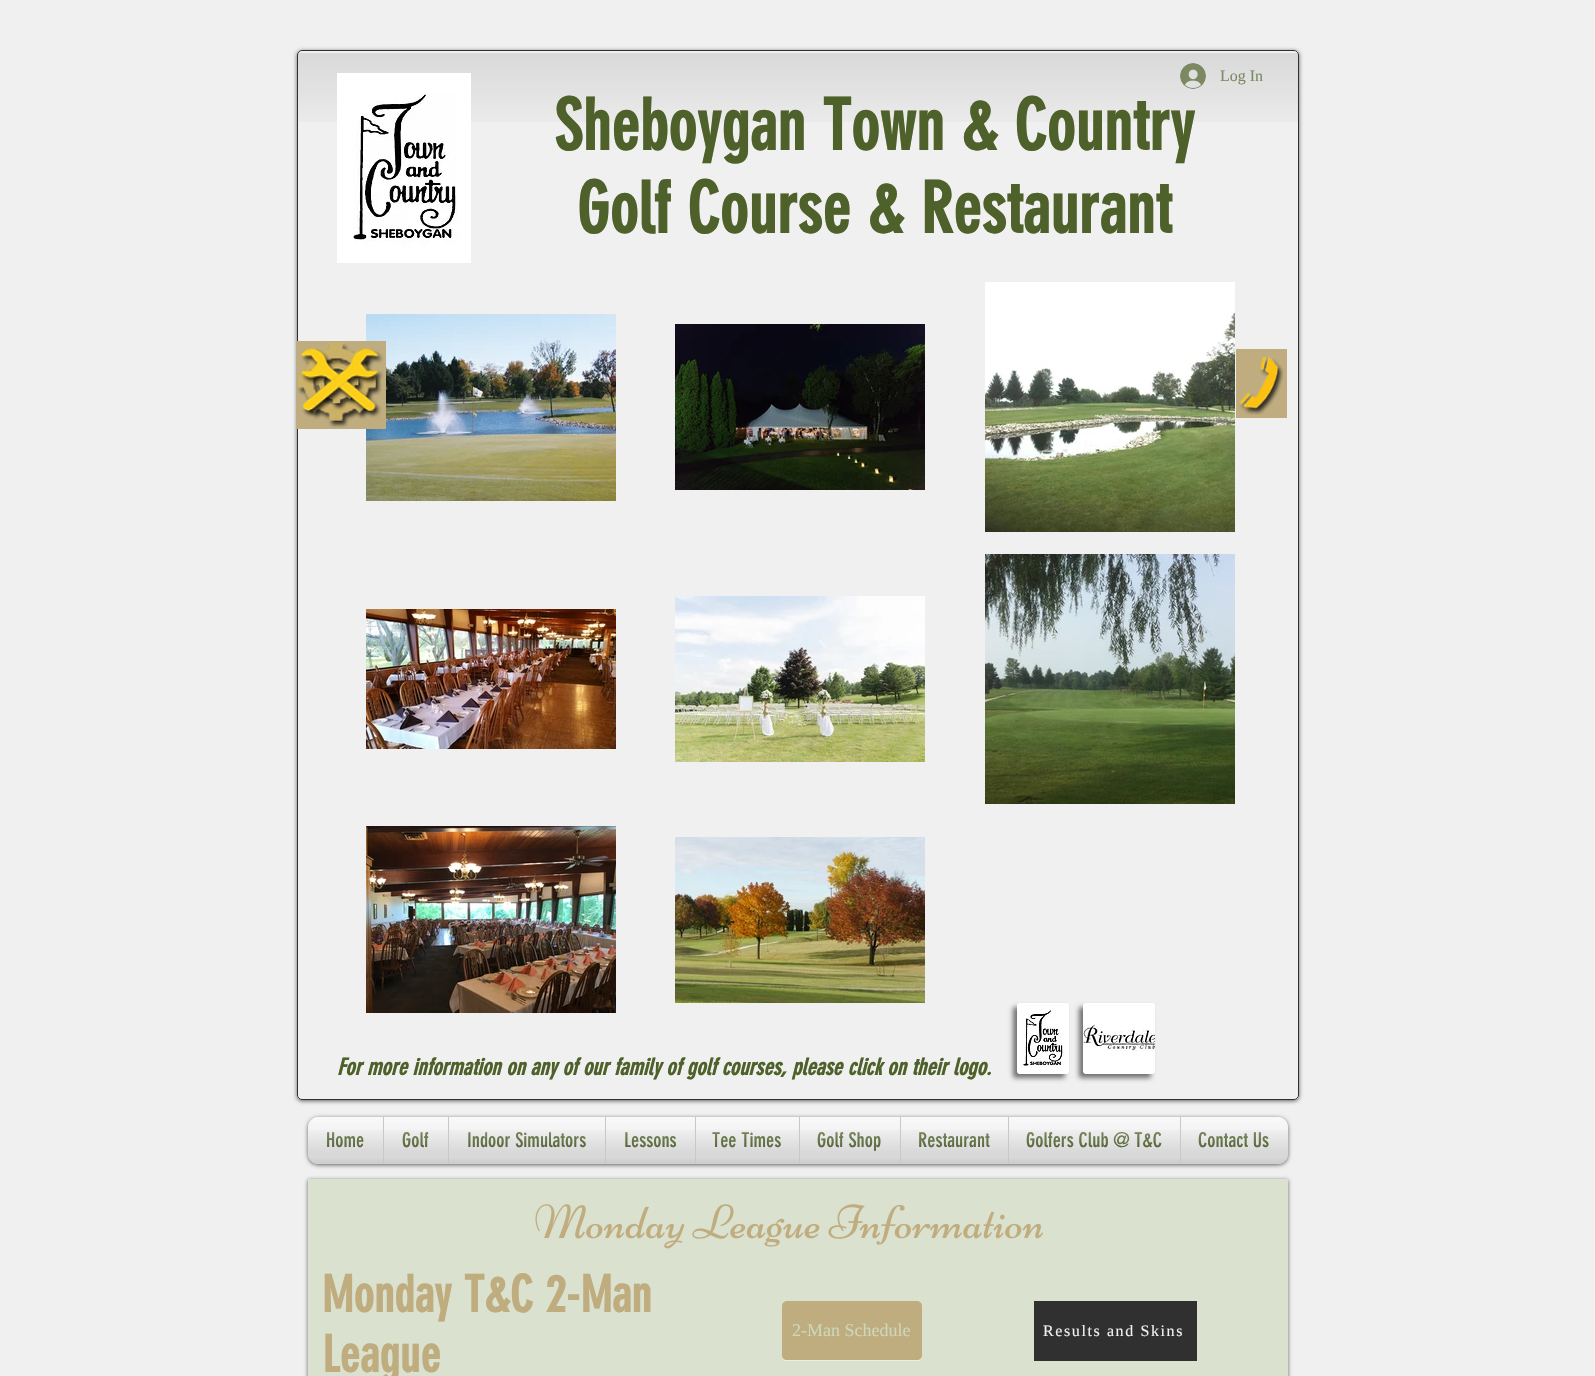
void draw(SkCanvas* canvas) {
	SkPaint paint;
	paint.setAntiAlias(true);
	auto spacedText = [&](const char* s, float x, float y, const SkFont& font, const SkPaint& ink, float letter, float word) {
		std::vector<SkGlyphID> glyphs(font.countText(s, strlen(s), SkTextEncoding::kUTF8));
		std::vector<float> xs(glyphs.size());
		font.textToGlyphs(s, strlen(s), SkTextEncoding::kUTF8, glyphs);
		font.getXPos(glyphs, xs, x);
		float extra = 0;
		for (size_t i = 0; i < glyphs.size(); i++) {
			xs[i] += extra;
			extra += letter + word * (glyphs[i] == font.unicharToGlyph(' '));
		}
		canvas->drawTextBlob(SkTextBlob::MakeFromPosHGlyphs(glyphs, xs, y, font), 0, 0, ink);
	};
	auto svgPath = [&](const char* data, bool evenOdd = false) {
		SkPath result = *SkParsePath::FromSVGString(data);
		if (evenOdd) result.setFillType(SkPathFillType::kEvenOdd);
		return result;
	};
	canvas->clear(0xfff0f0f0);
	paint.setColor(0x99000000);
	paint.setMaskFilter(SkMaskFilter::MakeBlur(kNormal_SkBlurStyle, 2));
	canvas->drawRoundRect(SkRect::MakeXYWH(297, 51, 1002, 1050), 5, 5, paint);
	paint.setMaskFilter(nullptr);
	paint.setColor(0xfff0f0f0);
	canvas->drawRoundRect(SkRect::MakeXYWH(297, 50, 1002, 1050), 5, 5, paint);
	canvas->drawImageRect(SkImages::DeferredFromEncodedData(SkData::MakeFromFileName("img2.png")), SkRect::MakeXYWH(297, 53, 1002, 69), SkSamplingOptions());
	paint.setStroke(true);
	paint.setStrokeWidth(1);
	paint.setColor(0xff303030);
	canvas->drawRoundRect(SkRect::MakeXYWH(297.5, 50.5, 1001, 1049), 4.5, 4.5, paint);
	canvas->drawImageRect(SkImages::DeferredFromEncodedData(SkData::MakeFromFileName("img1.png")), SkRect::MakeXYWH(1180, 63, 26, 26), SkSamplingOptions());
	SkFont f1(fontMgr->matchFamilyStyle("Liberation Serif", SkFontStyle::Normal()), 16);
	f1.setSubpixel(true);
	paint.setStroke(false);
	paint.setColor(0xff7b8962);
	canvas->drawString("Log In", 1220, 81, f1, paint);
	SkFont f2(fontMgr->matchFamilyStyle("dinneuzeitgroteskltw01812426", SkFontStyle::Bold()), 70);
	f2.setSubpixel(true);
	paint.setColor(0xff4e612a);
	canvas->drawString("Sheboygan Town & Country", 554, 150, f2, paint);
	canvas->drawString("Golf Course & Restaurant", 577, 233, f2, paint);
	canvas->drawImageRect(SkImages::DeferredFromEncodedData(SkData::MakeFromFileName("img3.png")), SkRect::MakeXYWH(337, 73, 134, 190), SkSamplingOptions());
	canvas->drawImageRect(SkImages::DeferredFromEncodedData(SkData::MakeFromFileName("img4.png")), SkRect::MakeXYWH(366, 314, 250, 187), SkSamplingOptions());
	canvas->drawImageRect(SkImages::DeferredFromEncodedData(SkData::MakeFromFileName("img5.png")), SkRect::MakeXYWH(675, 324, 250, 166), SkSamplingOptions());
	canvas->drawImageRect(SkImages::DeferredFromEncodedData(SkData::MakeFromFileName("img6.png")), SkRect::MakeXYWH(985, 282, 250, 250), SkSamplingOptions());
	canvas->drawImageRect(SkImages::DeferredFromEncodedData(SkData::MakeFromFileName("img7.png")), SkRect::MakeXYWH(366, 609, 250, 140), SkSamplingOptions());
	canvas->drawImageRect(SkImages::DeferredFromEncodedData(SkData::MakeFromFileName("img8.png")), SkRect::MakeXYWH(675, 596, 250, 166), SkSamplingOptions());
	canvas->drawImageRect(SkImages::DeferredFromEncodedData(SkData::MakeFromFileName("img9.png")), SkRect::MakeXYWH(985, 554, 250, 250), SkSamplingOptions());
	canvas->drawImageRect(SkImages::DeferredFromEncodedData(SkData::MakeFromFileName("img10.png")), SkRect::MakeXYWH(366, 826, 250, 187), SkSamplingOptions());
	canvas->drawImageRect(SkImages::DeferredFromEncodedData(SkData::MakeFromFileName("img11.png")), SkRect::MakeXYWH(675, 837, 250, 166), SkSamplingOptions());
	SkFont f3(fontMgr->matchFamilyStyle("dinneuzeitgroteskltw01812426", SkFontStyle::BoldItalic()), 23);
	f3.setSubpixel(true);
	canvas->drawString("For more information on any of our family of golf courses, please click on their logo.", 337, 1075, f3, paint);
	paint.setColor(0x87000000);
	paint.setMaskFilter(SkMaskFilter::MakeBlur(kNormal_SkBlurStyle, 2.5));
	canvas->drawRoundRect(SkRect::MakeXYWH(1013, 1007, 52, 71), 2, 2, paint);
	paint.setMaskFilter(nullptr);
	canvas->drawImageRect(SkImages::DeferredFromEncodedData(SkData::MakeFromFileName("img12.png")), SkRect::MakeXYWH(1017, 1003, 52, 71), SkSamplingOptions());
	paint.setMaskFilter(SkMaskFilter::MakeBlur(kNormal_SkBlurStyle, 2.5));
	canvas->drawRoundRect(SkRect::MakeXYWH(1079, 1007, 72, 71), 2, 2, paint);
	paint.setMaskFilter(nullptr);
	canvas->drawImageRect(SkImages::DeferredFromEncodedData(SkData::MakeFromFileName("img13.png")), SkRect::MakeXYWH(1083, 1003, 72, 71), SkSamplingOptions());
	paint.setColor(0x99000000);
	paint.setMaskFilter(SkMaskFilter::MakeBlur(kNormal_SkBlurStyle, 2));
	canvas->drawRoundRect(SkRect::MakeXYWH(308, 1118, 980, 47), 10, 10, paint);
	paint.setMaskFilter(nullptr);
	canvas->drawImageRect(SkImages::DeferredFromEncodedData(SkData::MakeFromFileName("img14.png")), SkRect::MakeXYWH(308, 1117, 980, 10), SkSamplingOptions());
	canvas->drawImageRect(SkImages::DeferredFromEncodedData(SkData::MakeFromFileName("img15.png")), SkRect::MakeXYWH(308, 1154, 980, 10), SkSamplingOptions());
	paint.setColor(0xfff0f0f0);
	canvas->drawPath(svgPath("M318 1117H383V1164H318C312.5 1164 308 1159.5 308 1154V1127C308 1121.5 312.5 1117 318 1117Z"), paint);
	SkFont f4(fontMgr->matchFamilyStyle("dinneuzeitgroteskltw01812426", SkFontStyle::Normal()), 20);
	f4.setSubpixel(true);
	paint.setColor(0xff4e612a);
	canvas->drawString("Home", 326, 1147, f4, paint);
	canvas->drawImageRect(SkImages::DeferredFromEncodedData(SkData::MakeFromFileName("img16.png")), SkRect::MakeXYWH(308, 1117, 75, 31), SkSamplingOptions());
	canvas->drawImageRect(SkImages::DeferredFromEncodedData(SkData::MakeFromFileName("img17.png")), SkRect::MakeXYWH(308, 1130, 75, 34), SkSamplingOptions());
	paint.setColor(0xfff0f0f0);
	canvas->drawRect(SkRect::MakeXYWH(384, 1117, 64, 47), paint);
	paint.setColor(0xffc8c8c8);
	canvas->drawRect(SkRect::MakeXYWH(383, 1117, 1, 47), paint);
	paint.setColor(0xff4e612a);
	canvas->drawString("Golf", 402, 1147, f4, paint);
	canvas->drawImageRect(SkImages::DeferredFromEncodedData(SkData::MakeFromFileName("img18.png")), SkRect::MakeXYWH(384, 1117, 64, 31), SkSamplingOptions());
	canvas->drawImageRect(SkImages::DeferredFromEncodedData(SkData::MakeFromFileName("img19.png")), SkRect::MakeXYWH(384, 1130, 64, 34), SkSamplingOptions());
	paint.setColor(0xfff0f0f0);
	canvas->drawRect(SkRect::MakeXYWH(449, 1117, 156, 47), paint);
	paint.setColor(0xffc8c8c8);
	canvas->drawRect(SkRect::MakeXYWH(448, 1117, 1, 47), paint);
	paint.setColor(0xff4e612a);
	canvas->drawString("Indoor Simulators", 467, 1147, f4, paint);
	canvas->drawImageRect(SkImages::DeferredFromEncodedData(SkData::MakeFromFileName("img20.png")), SkRect::MakeXYWH(449, 1117, 156, 31), SkSamplingOptions());
	canvas->drawImageRect(SkImages::DeferredFromEncodedData(SkData::MakeFromFileName("img21.png")), SkRect::MakeXYWH(449, 1130, 156, 34), SkSamplingOptions());
	paint.setColor(0xfff0f0f0);
	canvas->drawRect(SkRect::MakeXYWH(606, 1117, 89, 47), paint);
	paint.setColor(0xffc8c8c8);
	canvas->drawRect(SkRect::MakeXYWH(605, 1117, 1, 47), paint);
	paint.setColor(0xff4e612a);
	canvas->drawString("Lessons", 624, 1147, f4, paint);
	canvas->drawImageRect(SkImages::DeferredFromEncodedData(SkData::MakeFromFileName("img22.png")), SkRect::MakeXYWH(606, 1117, 89, 31), SkSamplingOptions());
	canvas->drawImageRect(SkImages::DeferredFromEncodedData(SkData::MakeFromFileName("img23.png")), SkRect::MakeXYWH(606, 1130, 89, 34), SkSamplingOptions());
	paint.setColor(0xfff0f0f0);
	canvas->drawRect(SkRect::MakeXYWH(696, 1117, 103, 47), paint);
	paint.setColor(0xffc8c8c8);
	canvas->drawRect(SkRect::MakeXYWH(695, 1117, 1, 47), paint);
	paint.setColor(0xff4e612a);
	canvas->drawString("Tee Times", 712, 1147, f4, paint);
	canvas->drawImageRect(SkImages::DeferredFromEncodedData(SkData::MakeFromFileName("img24.png")), SkRect::MakeXYWH(696, 1117, 103, 31), SkSamplingOptions());
	canvas->drawImageRect(SkImages::DeferredFromEncodedData(SkData::MakeFromFileName("img25.png")), SkRect::MakeXYWH(696, 1130, 103, 34), SkSamplingOptions());
	paint.setColor(0xfff0f0f0);
	canvas->drawRect(SkRect::MakeXYWH(800, 1117, 100, 47), paint);
	paint.setColor(0xffc8c8c8);
	canvas->drawRect(SkRect::MakeXYWH(799, 1117, 1, 47), paint);
	paint.setColor(0xff4e612a);
	canvas->drawString("Golf Shop", 817, 1147, f4, paint);
	canvas->drawImageRect(SkImages::DeferredFromEncodedData(SkData::MakeFromFileName("img26.png")), SkRect::MakeXYWH(800, 1117, 100, 34), SkSamplingOptions());
	canvas->drawImageRect(SkImages::DeferredFromEncodedData(SkData::MakeFromFileName("img27.png")), SkRect::MakeXYWH(800, 1130, 100, 34), SkSamplingOptions());
	paint.setColor(0xfff0f0f0);
	canvas->drawRect(SkRect::MakeXYWH(901, 1117, 107, 47), paint);
	paint.setColor(0xffc8c8c8);
	canvas->drawRect(SkRect::MakeXYWH(900, 1117, 1, 47), paint);
	paint.setColor(0xff4e612a);
	canvas->drawString("Restaurant", 918, 1147, f4, paint);
	canvas->drawImageRect(SkImages::DeferredFromEncodedData(SkData::MakeFromFileName("img28.png")), SkRect::MakeXYWH(901, 1117, 107, 31), SkSamplingOptions());
	canvas->drawImageRect(SkImages::DeferredFromEncodedData(SkData::MakeFromFileName("img29.png")), SkRect::MakeXYWH(901, 1130, 107, 34), SkSamplingOptions());
	paint.setColor(0xfff0f0f0);
	canvas->drawRect(SkRect::MakeXYWH(1009, 1117, 171, 47), paint);
	paint.setColor(0xffc8c8c8);
	canvas->drawRect(SkRect::MakeXYWH(1008, 1117, 1, 47), paint);
	paint.setColor(0xff4e612a);
	canvas->drawString("Golfers Club @ T&C", 1026, 1147, f4, paint);
	canvas->drawImageRect(SkImages::DeferredFromEncodedData(SkData::MakeFromFileName("img30.png")), SkRect::MakeXYWH(1009, 1117, 171, 31), SkSamplingOptions());
	canvas->drawImageRect(SkImages::DeferredFromEncodedData(SkData::MakeFromFileName("img31.png")), SkRect::MakeXYWH(1009, 1130, 171, 34), SkSamplingOptions());
	paint.setColor(0xfff0f0f0);
	canvas->drawPath(svgPath("M1180 1117H1278C1283.5 1117 1288 1121.5 1288 1127V1154C1288 1159.5 1283.5 1164 1278 1164H1180Z"), paint);
	paint.setColor(0xffc8c8c8);
	canvas->drawRect(SkRect::MakeXYWH(1180, 1117, 1, 47), paint);
	paint.setColor(0xff4e612a);
	canvas->drawString("Contact Us", 1198, 1147, f4, paint);
	canvas->drawImageRect(SkImages::DeferredFromEncodedData(SkData::MakeFromFileName("img32.png")), SkRect::MakeXYWH(1181, 1117, 107, 31), SkSamplingOptions());
	canvas->drawImageRect(SkImages::DeferredFromEncodedData(SkData::MakeFromFileName("img33.png")), SkRect::MakeXYWH(1181, 1130, 107, 34), SkSamplingOptions());
	paint.setColor(0xffbfad7f);
	canvas->drawRect(SkRect::MakeXYWH(296, 341, 90, 88), paint);
	canvas->drawImageRect(SkImages::DeferredFromEncodedData(SkData::MakeFromFileName("img34.png")), SkRect::MakeXYWH(297, 343, 87, 85), SkSamplingOptions());
	canvas->drawRect(SkRect::MakeXYWH(1236, 349, 51, 69), paint);
	canvas->drawImageRect(SkImages::DeferredFromEncodedData(SkData::MakeFromFileName("img35.png")), SkRect::MakeXYWH(1239, 357, 45, 58), SkSamplingOptions());
	paint.setColor(0x99000000);
	paint.setMaskFilter(SkMaskFilter::MakeBlur(kNormal_SkBlurStyle, 2));
	canvas->drawRect(SkRect::MakeXYWH(308, 1180, 980, 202), paint);
	paint.setMaskFilter(nullptr);
	paint.setColor(0xffdbe1cf);
	canvas->drawRect(SkRect::MakeXYWH(308, 1179, 980, 197), paint);
	canvas->drawImageRect(SkImages::DeferredFromEncodedData(SkData::MakeFromFileName("img36.png")), SkRect::MakeXYWH(535, 1204, 508, 45), SkSamplingOptions());
	SkFont f5(fontMgr->matchFamilyStyle("dinneuzeitgroteskltw01812426", SkFontStyle::Bold()), 50);
	f5.setSubpixel(true);
	paint.setColor(0xffbfad7f);
	canvas->drawString("Monday T&C 2-Man", 322, 1312, f5, paint);
	canvas->drawString("League", 322, 1372, f5, paint);
	canvas->drawRoundRect(SkRect::MakeXYWH(782, 1301, 140, 60), 5, 5, paint);
	paint.setColor(0xbfffffff);
	canvas->drawPath(svgPath("M782 1355V1356C782 1359 784 1361 787 1361H917C920 1361 922 1359 922 1356V1355C922 1358 920 1360 917 1360H787C784 1360 782 1358 782 1355Z"), paint);
	SkFont f6(fontMgr->matchFamilyStyle("Liberation Serif", SkFontStyle::Normal()), 18);
	f6.setSubpixel(true);
	paint.setColor(0xffcdd7b9);
	canvas->drawString("2-Man Schedule", 792, 1336, f6, paint);
	paint.setColor(0xff303030);
	canvas->drawRect(SkRect::MakeXYWH(1034, 1301, 163, 60), paint);
	paint.setColor(0xfff0f0f0);
	spacedText("Results and Skins", 1043, 1336, f1, paint, 1.6, 0);
}
